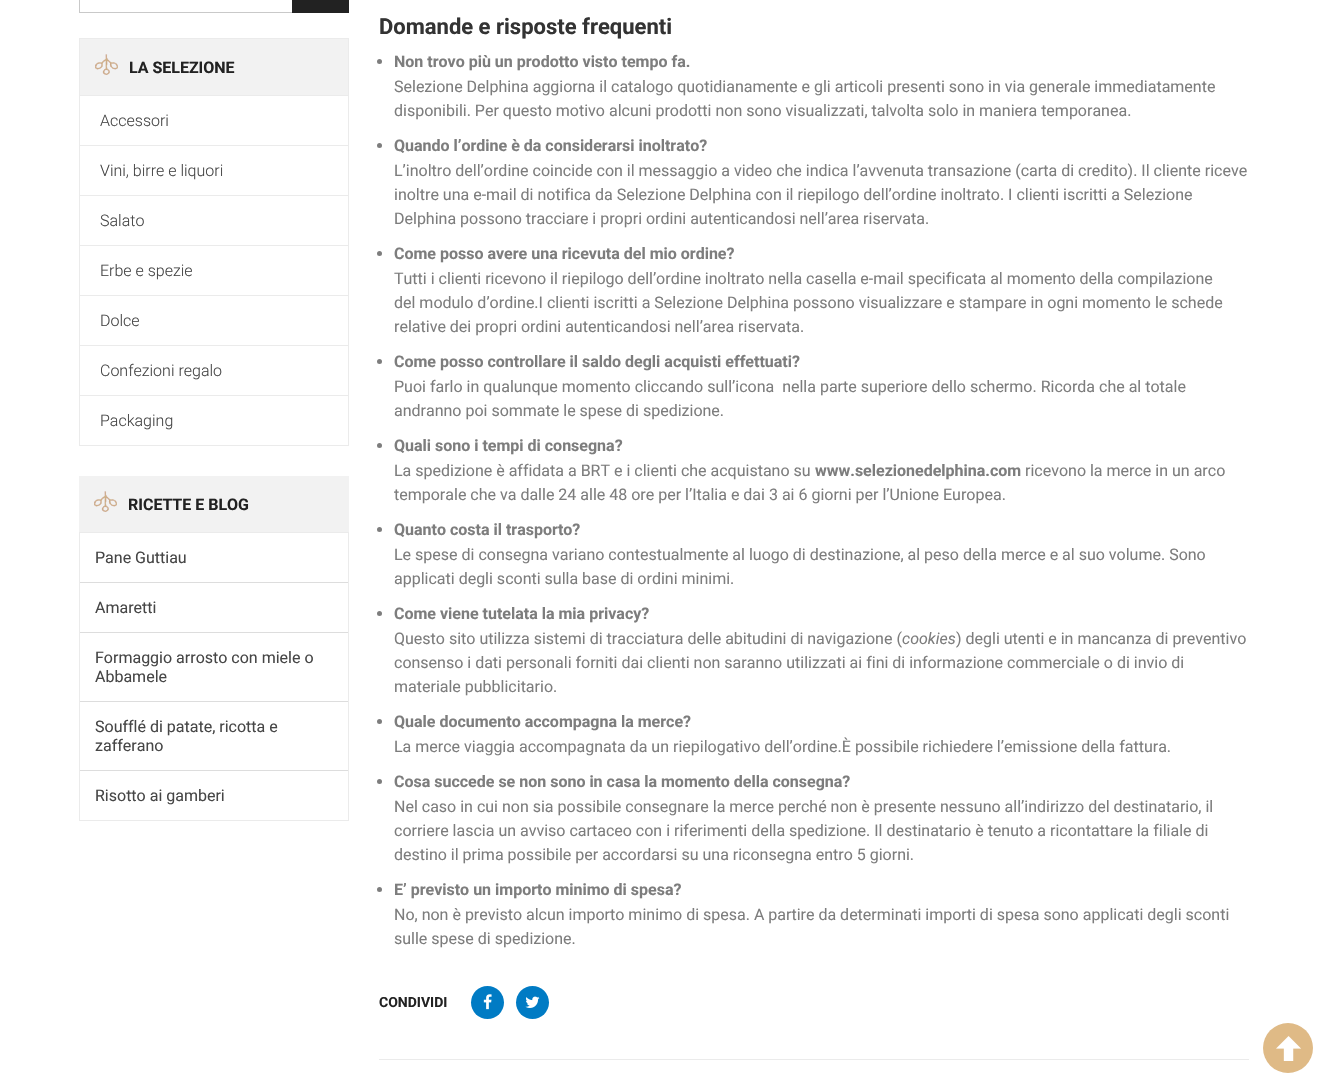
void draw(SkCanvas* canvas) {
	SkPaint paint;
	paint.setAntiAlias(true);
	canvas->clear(0xffffffff);
	paint.setStroke(true);
	paint.setStrokeWidth(1);
	paint.setColor(0xffc9c9c9);
	canvas->drawRect(SkRect::MakeXYWH(79.5, -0.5, 269, 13), paint);
	paint.setStroke(false);
	paint.setColor(0xff222222);
	canvas->drawRect(SkRect::MakeXYWH(292, 0, 57, 13), paint);
	paint.setStroke(true);
	paint.setColor(0xffebebeb);
	canvas->drawRect(SkRect::MakeXYWH(79.5, 38.5, 269, 407), paint);
	paint.setStroke(false);
	paint.setColor(0xfff2f2f2);
	canvas->drawRect(SkRect::MakeXYWH(80, 39, 268, 56), paint);
	canvas->drawImageRect(SkImages::DeferredFromEncodedData(SkData::MakeFromFileName("img1.png")), SkRect::MakeXYWH(95, 54, 23, 21), SkSamplingOptions());
	SkFont f1(fontMgr->matchFamilyStyle("Roboto", SkFontStyle::Bold()), 16);
	f1.setSubpixel(true);
	paint.setColor(0xff222222);
	canvas->drawString("LA SELEZIONE", 129, 73, f1, paint);
	paint.setColor(0xffebebeb);
	canvas->drawRect(SkRect::MakeXYWH(80, 95, 268, 1), paint);
	SkFont f2(fontMgr->matchFamilyStyle("Roboto", SkFontStyle(300, SkFontStyle::kNormal_Width, SkFontStyle::kUpright_Slant)), 16);
	f2.setSubpixel(true);
	paint.setColor(0xff464646);
	canvas->drawString("Accessori", 100, 126, f2, paint);
	paint.setColor(0xffebebeb);
	canvas->drawRect(SkRect::MakeXYWH(80, 145, 268, 1), paint);
	paint.setColor(0xff464646);
	canvas->drawString("Vini, birre e liquori", 100, 176, f2, paint);
	paint.setColor(0xffebebeb);
	canvas->drawRect(SkRect::MakeXYWH(80, 195, 268, 1), paint);
	paint.setColor(0xff464646);
	canvas->drawString("Salato", 100, 226, f2, paint);
	paint.setColor(0xffebebeb);
	canvas->drawRect(SkRect::MakeXYWH(80, 245, 268, 1), paint);
	paint.setColor(0xff464646);
	canvas->drawString("Erbe e spezie", 100, 276, f2, paint);
	paint.setColor(0xffebebeb);
	canvas->drawRect(SkRect::MakeXYWH(80, 295, 268, 1), paint);
	paint.setColor(0xff464646);
	canvas->drawString("Dolce", 100, 326, f2, paint);
	paint.setColor(0xffebebeb);
	canvas->drawRect(SkRect::MakeXYWH(80, 345, 268, 1), paint);
	paint.setColor(0xff464646);
	canvas->drawString("Confezioni regalo", 100, 376, f2, paint);
	paint.setColor(0xffebebeb);
	canvas->drawRect(SkRect::MakeXYWH(80, 395, 268, 1), paint);
	paint.setColor(0xff464646);
	canvas->drawString("Packaging", 100, 426, f2, paint);
	paint.setColor(0xfff2f2f2);
	canvas->drawRect(SkRect::MakeXYWH(79, 476, 270, 56), paint);
	canvas->drawImageRect(SkImages::DeferredFromEncodedData(SkData::MakeFromFileName("img1.png")), SkRect::MakeXYWH(94, 491, 23, 21), SkSamplingOptions());
	paint.setColor(0xff222222);
	canvas->drawString("RICETTE E BLOG", 128, 510, f1, paint);
	paint.setStroke(true);
	paint.setColor(0xffebebeb);
	canvas->drawRect(SkRect::MakeXYWH(79.5, 532.5, 269, 288), paint);
	paint.setStroke(false);
	paint.setColor(0xffdddddd);
	canvas->drawRect(SkRect::MakeXYWH(80, 582, 268, 1), paint);
	SkFont f3(fontMgr->matchFamilyStyle("Roboto", SkFontStyle::Normal()), 16);
	f3.setSubpixel(true);
	paint.setColor(0xff464646);
	canvas->drawString("Pane Guttiau", 95, 563, f3, paint);
	paint.setColor(0xffdddddd);
	canvas->drawRect(SkRect::MakeXYWH(80, 632, 268, 1), paint);
	paint.setColor(0xff464646);
	canvas->drawString("Amaretti", 95, 613, f3, paint);
	paint.setColor(0xffdddddd);
	canvas->drawRect(SkRect::MakeXYWH(80, 701, 268, 1), paint);
	paint.setColor(0xff464646);
	canvas->drawString("Formaggio arrosto con miele o", 95, 663, f3, paint);
	canvas->drawString("Abbamele", 95, 682, f3, paint);
	paint.setColor(0xffdddddd);
	canvas->drawRect(SkRect::MakeXYWH(80, 770, 268, 1), paint);
	paint.setColor(0xff464646);
	canvas->drawString("Soufflé di patate, ricotta e", 95, 732, f3, paint);
	canvas->drawString("zafferano", 95, 751, f3, paint);
	canvas->drawString("Risotto ai gamberi", 95, 801, f3, paint);
	SkFont f4(fontMgr->matchFamilyStyle("Roboto", SkFontStyle::Bold()), 22);
	f4.setSubpixel(true);
	paint.setColor(0xff333333);
	canvas->drawString("Domande e risposte frequenti", 379, 34, f4, paint);
	paint.setColor(0xff7d7d7d);
	canvas->drawCircle(379.5, 61.5, 2.5, paint);
	canvas->drawString("Non trovo più un prodotto visto tempo fa.", 394, 67, f1, paint);
	canvas->drawString("Selezione Delphina aggiorna il catalogo quotidianamente e gli articoli presenti sono in via generale immediatamente", 394, 92, f3, paint);
	canvas->drawString("disponibili. Per questo motivo alcuni prodotti non sono visualizzati, talvolta solo in maniera temporanea.", 394, 116, f3, paint);
	canvas->drawCircle(379.5, 145.5, 2.5, paint);
	canvas->drawString("Quando l’ordine è da considerarsi inoltrato?", 394, 151, f1, paint);
	canvas->drawString("L’inoltro dell’ordine coincide con il messaggio a video che indica l’avvenuta transazione (carta di credito). Il cliente riceve", 394, 176, f3, paint);
	canvas->drawString("inoltre una e-mail di notifica da Selezione Delphina con il riepilogo dell’ordine inoltrato. I clienti iscritti a Selezione", 394, 200, f3, paint);
	canvas->drawString("Delphina possono tracciare i propri ordini autenticandosi nell’area riservata.", 394, 224, f3, paint);
	canvas->drawCircle(379.5, 253.5, 2.5, paint);
	canvas->drawString("Come posso avere una ricevuta del mio ordine?", 394, 259, f1, paint);
	canvas->drawString("Tutti i clienti ricevono il riepilogo dell’ordine inoltrato nella casella e-mail specificata al momento della compilazione", 394, 284, f3, paint);
	canvas->drawString("del modulo d’ordine.I clienti iscritti a Selezione Delphina possono visualizzare e stampare in ogni momento le schede", 394, 308, f3, paint);
	canvas->drawString("relative dei propri ordini autenticandosi nell’area riservata.", 394, 332, f3, paint);
	canvas->drawCircle(379.5, 361.5, 2.5, paint);
	canvas->drawString("Come posso controllare il saldo degli acquisti effettuati?", 394, 367, f1, paint);
	canvas->drawString("Puoi farlo in qualunque momento cliccando sull’icona  nella parte superiore dello schermo. Ricorda che al totale", 394, 392, f3, paint);
	canvas->drawString("andranno poi sommate le spese di spedizione.", 394, 416, f3, paint);
	canvas->drawCircle(379.5, 445.5, 2.5, paint);
	canvas->drawString("Quali sono i tempi di consegna?", 394, 451, f1, paint);
	canvas->drawString("La spedizione è affidata a BRT e i clienti che acquistano su", 394, 476, f3, paint);
	canvas->drawString("www.selezionedelphina.com", 815, 476, f1, paint);
	canvas->drawString("ricevono la merce in un arco", 1025, 476, f3, paint);
	canvas->drawString("temporale che va dalle 24 alle 48 ore per l’Italia e dai 3 ai 6 giorni per l’Unione Europea.", 394, 500, f3, paint);
	canvas->drawCircle(379.5, 529.5, 2.5, paint);
	canvas->drawString("Quanto costa il trasporto?", 394, 535, f1, paint);
	canvas->drawString("Le spese di consegna variano contestualmente al luogo di destinazione, al peso della merce e al suo volume. Sono", 394, 560, f3, paint);
	canvas->drawString("applicati degli sconti sulla base di ordini minimi.", 394, 584, f3, paint);
	canvas->drawCircle(379.5, 613.5, 2.5, paint);
	canvas->drawString("Come viene tutelata la mia privacy?", 394, 619, f1, paint);
	canvas->drawString("Questo sito utilizza sistemi di tracciatura delle abitudini di navigazione (", 394, 644, f3, paint);
	SkFont f5(fontMgr->matchFamilyStyle("Roboto", SkFontStyle::Italic()), 16);
	f5.setSubpixel(true);
	canvas->drawString("cookies", 902, 644, f5, paint);
	canvas->drawString(") degli utenti e in mancanza di preventivo", 956, 644, f3, paint);
	canvas->drawString("consenso i dati personali forniti dai clienti non saranno utilizzati ai fini di informazione commerciale o di invio di", 394, 668, f3, paint);
	canvas->drawString("materiale pubblicitario.", 394, 692, f3, paint);
	canvas->drawCircle(379.5, 721.5, 2.5, paint);
	canvas->drawString("Quale documento accompagna la merce?", 394, 727, f1, paint);
	canvas->drawString("La merce viaggia accompagnata da un riepilogativo dell’ordine.È possibile richiedere l’emissione della fattura.", 394, 752, f3, paint);
	canvas->drawCircle(379.5, 781.5, 2.5, paint);
	canvas->drawString("Cosa succede se non sono in casa la momento della consegna?", 394, 787, f1, paint);
	canvas->drawString("Nel caso in cui non sia possibile consegnare la merce perché non è presente nessuno all’indirizzo del destinatario, il", 394, 812, f3, paint);
	canvas->drawString("corriere lascia un avviso cartaceo con i riferimenti della spedizione. Il destinatario è tenuto a ricontattare la filiale di", 394, 836, f3, paint);
	canvas->drawString("destino il prima possibile per accordarsi su una riconsegna entro 5 giorni.", 394, 860, f3, paint);
	canvas->drawCircle(379.5, 889.5, 2.5, paint);
	canvas->drawString("E’ previsto un importo minimo di spesa?", 394, 895, f1, paint);
	canvas->drawString("No, non è previsto alcun importo minimo di spesa. A partire da determinati importi di spesa sono applicati degli sconti", 394, 920, f3, paint);
	canvas->drawString("sulle spese di spedizione.", 394, 944, f3, paint);
	paint.setColor(0xffebebeb);
	canvas->drawRect(SkRect::MakeXYWH(379, 1059, 870, 1), paint);
	SkFont f6(fontMgr->matchFamilyStyle("Roboto", SkFontStyle::Bold()), 14);
	f6.setSubpixel(true);
	paint.setColor(0xff222222);
	canvas->drawString("CONDIVIDI", 379, 1007, f6, paint);
	paint.setColor(0xff007bc4);
	canvas->drawCircle(487.5, 1002.5, 16.5, paint);
	canvas->drawImageRect(SkImages::DeferredFromEncodedData(SkData::MakeFromFileName("img2.png")), SkRect::MakeXYWH(483, 994, 9, 16), SkSamplingOptions());
	canvas->drawCircle(532.5, 1002.5, 16.5, paint);
	canvas->drawImageRect(SkImages::DeferredFromEncodedData(SkData::MakeFromFileName("img3.png")), SkRect::MakeXYWH(525, 996, 15, 12), SkSamplingOptions());
	paint.setColor(0xffdfba86);
	canvas->drawCircle(1288, 1048, 25, paint);
	canvas->drawImageRect(SkImages::DeferredFromEncodedData(SkData::MakeFromFileName("img4.png")), SkRect::MakeXYWH(1276, 1036, 25, 25), SkSamplingOptions());
}
